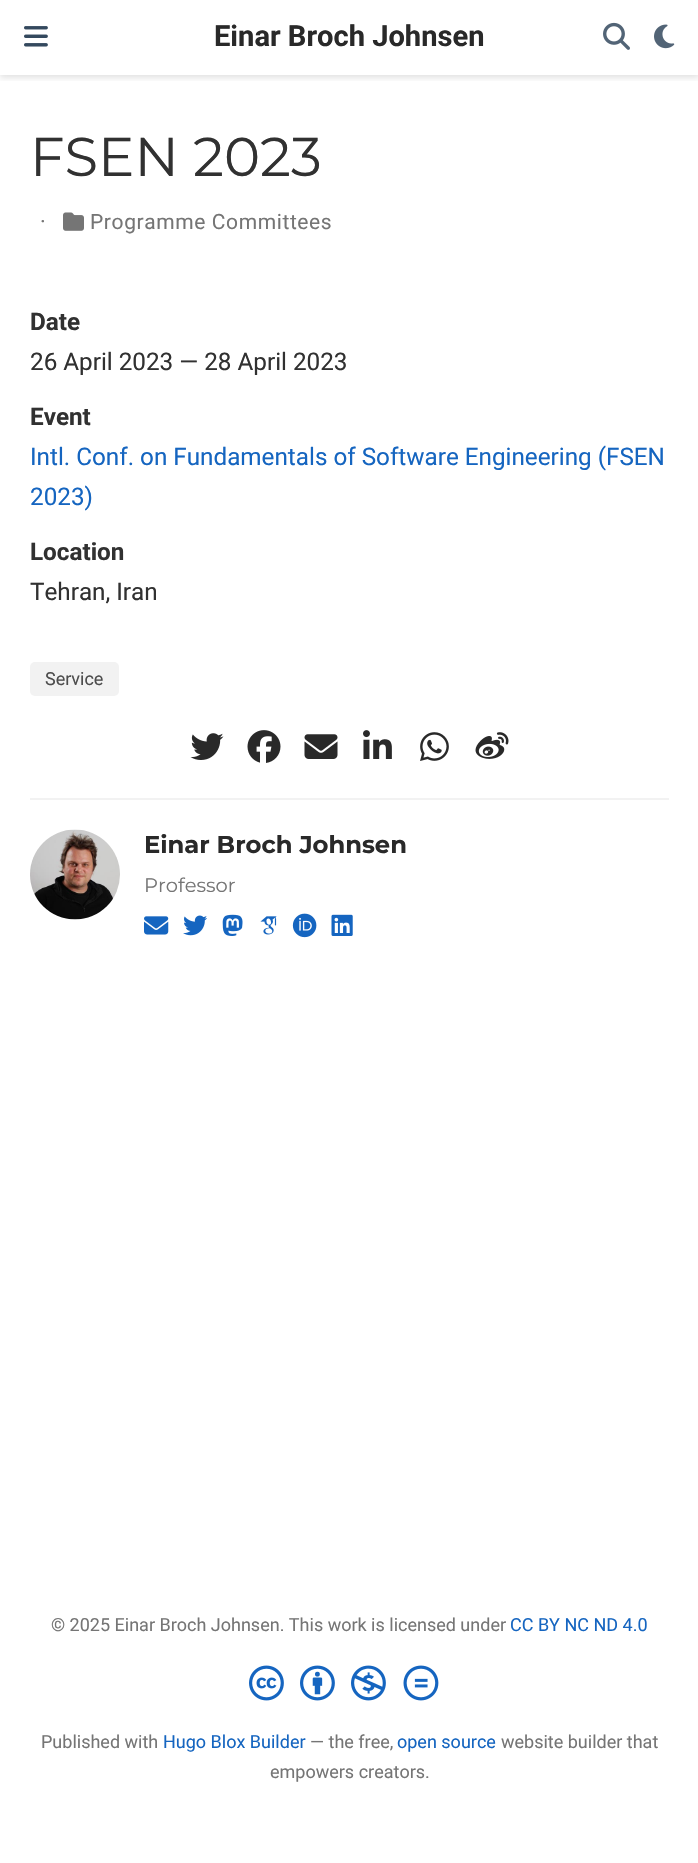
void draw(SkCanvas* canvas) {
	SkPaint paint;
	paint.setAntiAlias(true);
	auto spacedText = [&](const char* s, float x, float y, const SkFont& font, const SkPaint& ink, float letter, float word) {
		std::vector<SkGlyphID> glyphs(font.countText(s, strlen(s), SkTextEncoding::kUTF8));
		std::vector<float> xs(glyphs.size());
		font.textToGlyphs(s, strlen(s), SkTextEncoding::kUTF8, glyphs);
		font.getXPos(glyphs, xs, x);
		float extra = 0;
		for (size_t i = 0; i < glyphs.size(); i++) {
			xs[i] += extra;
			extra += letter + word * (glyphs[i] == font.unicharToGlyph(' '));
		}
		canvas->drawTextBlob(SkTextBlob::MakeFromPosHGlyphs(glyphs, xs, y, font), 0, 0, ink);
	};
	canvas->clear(0xffffffff);
	canvas->save();
	canvas->clipRect(SkRect::MakeXYWH(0, 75, 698, 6));
	paint.setColor(0x1c000000);
	paint.setMaskFilter(SkMaskFilter::MakeBlur(kNormal_SkBlurStyle, 3));
	canvas->drawRect(SkRect::MakeXYWH(0, 3, 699, 75), paint);
	paint.setMaskFilter(nullptr);
	canvas->restore();
	canvas->drawImageRect(SkImages::DeferredFromEncodedData(SkData::MakeFromFileName("img1.png")), SkRect::MakeXYWH(24, 26, 24, 21), SkSamplingOptions());
	SkFont f1(fontMgr->matchFamilyStyle("Roboto", SkFontStyle::Bold()), 29.1);
	f1.setSubpixel(true);
	paint.setColor(0xff292929);
	canvas->drawString("Einar Broch Johnsen", 214, 46, f1, paint);
	canvas->drawImageRect(SkImages::DeferredFromEncodedData(SkData::MakeFromFileName("img2.png")), SkRect::MakeXYWH(603, 22, 27, 28), SkSamplingOptions());
	canvas->drawImageRect(SkImages::DeferredFromEncodedData(SkData::MakeFromFileName("img3.png")), SkRect::MakeXYWH(654, 24, 21, 25), SkSamplingOptions());
	SkFont f2(fontMgr->matchFamilyStyle("Montserrat", SkFontStyle::Normal()), 54.5);
	f2.setSubpixel(true);
	paint.setColor(0xff313131);
	canvas->drawString("FSEN 2023", 30, 176, f2, paint);
	SkFont f3(fontMgr->matchFamilyStyle("Roboto", SkFontStyle::Normal()), 22);
	f3.setSubpixel(true);
	paint.setColor(0xff757575);
	spacedText("·", 40, 229, f3, paint, 0.6, 0);
	canvas->drawImageRect(SkImages::DeferredFromEncodedData(SkData::MakeFromFileName("img4.png")), SkRect::MakeXYWH(63, 212, 21, 19), SkSamplingOptions());
	SkFont f4(fontMgr->matchFamilyStyle("Roboto", SkFontStyle::Normal()), 21);
	f4.setSubpixel(true);
	spacedText("Programme Committees", 90, 229, f4, paint, 0.6, 0);
	SkFont f5(fontMgr->matchFamilyStyle("Roboto", SkFontStyle::Bold()), 24.25);
	f5.setSubpixel(true);
	paint.setColor(0xff313131);
	canvas->drawString("Date", 30, 330, f5, paint);
	SkFont f6(fontMgr->matchFamilyStyle("Roboto", SkFontStyle::Normal()), 24.25);
	f6.setSubpixel(true);
	canvas->drawString("26 April 2023 — 28 April 2023", 30, 370, f6, paint);
	canvas->drawString("Event", 30, 425, f5, paint);
	paint.setColor(0xff1565c0);
	canvas->drawString("Intl. Conf. on Fundamentals of Software Engineering (FSEN", 30, 465, f6, paint);
	canvas->drawString("2023)", 30, 505, f6, paint);
	paint.setColor(0xff313131);
	canvas->drawString("Location", 30, 560, f5, paint);
	canvas->drawString("Tehran, Iran", 30, 600, f6, paint);
	paint.setColor(0xfff2f2f2);
	canvas->drawRoundRect(SkRect::MakeXYWH(30, 662, 89, 34), 5, 5, paint);
	SkFont f7(fontMgr->matchFamilyStyle("Roboto", SkFontStyle::Normal()), 18);
	f7.setSubpixel(true);
	paint.setColor(0xff4d4d4d);
	canvas->drawString("Service", 45, 685, f7, paint);
	canvas->drawImageRect(SkImages::DeferredFromEncodedData(SkData::MakeFromFileName("img5.png")), SkRect::MakeXYWH(190, 733, 34, 27), SkSamplingOptions());
	canvas->drawImageRect(SkImages::DeferredFromEncodedData(SkData::MakeFromFileName("img6.png")), SkRect::MakeXYWH(247, 730, 34, 33), SkSamplingOptions());
	canvas->drawImageRect(SkImages::DeferredFromEncodedData(SkData::MakeFromFileName("img7.png")), SkRect::MakeXYWH(304, 734, 34, 25), SkSamplingOptions());
	canvas->drawImageRect(SkImages::DeferredFromEncodedData(SkData::MakeFromFileName("img8.png")), SkRect::MakeXYWH(363, 730, 29, 29), SkSamplingOptions());
	canvas->drawImageRect(SkImages::DeferredFromEncodedData(SkData::MakeFromFileName("img9.png")), SkRect::MakeXYWH(420, 732, 29, 29), SkSamplingOptions());
	canvas->drawImageRect(SkImages::DeferredFromEncodedData(SkData::MakeFromFileName("img10.png")), SkRect::MakeXYWH(475, 732, 34, 27), SkSamplingOptions());
	paint.setColor(0xfff2f2f2);
	canvas->drawRect(SkRect::MakeXYWH(30, 798, 639, 2), paint);
	canvas->drawImageRect(SkImages::DeferredFromEncodedData(SkData::MakeFromFileName("img11.png")), SkRect::MakeXYWH(30, 829, 90, 91), SkSamplingOptions());
	SkFont f8(fontMgr->matchFamilyStyle("Montserrat", SkFontStyle::Bold()), 24.25);
	f8.setSubpixel(true);
	paint.setColor(0xff292929);
	canvas->drawString("Einar Broch Johnsen", 144, 853, f8, paint);
	SkFont f9(fontMgr->matchFamilyStyle("Montserrat", SkFontStyle::Normal()), 19.5);
	f9.setSubpixel(true);
	paint.setColor(0xff757575);
	canvas->drawString("Professor", 144, 892, f9, paint);
	canvas->drawImageRect(SkImages::DeferredFromEncodedData(SkData::MakeFromFileName("img12.png")), SkRect::MakeXYWH(144, 916, 25, 19), SkSamplingOptions());
	canvas->drawImageRect(SkImages::DeferredFromEncodedData(SkData::MakeFromFileName("img13.png")), SkRect::MakeXYWH(183, 915, 24, 21), SkSamplingOptions());
	canvas->drawImageRect(SkImages::DeferredFromEncodedData(SkData::MakeFromFileName("img14.png")), SkRect::MakeXYWH(222, 914, 21, 22), SkSamplingOptions());
	canvas->drawImageRect(SkImages::DeferredFromEncodedData(SkData::MakeFromFileName("img15.png")), SkRect::MakeXYWH(260, 916, 17, 19), SkSamplingOptions());
	canvas->drawImageRect(SkImages::DeferredFromEncodedData(SkData::MakeFromFileName("img16.png")), SkRect::MakeXYWH(292, 913, 25, 25), SkSamplingOptions());
	canvas->drawImageRect(SkImages::DeferredFromEncodedData(SkData::MakeFromFileName("img17.png")), SkRect::MakeXYWH(331, 914, 22, 22), SkSamplingOptions());
	canvas->drawString("© 2025 Einar Broch Johnsen. This work is licensed under", 51, 1631, f7, paint);
	paint.setColor(0xff1565c0);
	canvas->drawString("CC BY NC ND 4.0", 510, 1631, f7, paint);
	canvas->drawImageRect(SkImages::DeferredFromEncodedData(SkData::MakeFromFileName("img18.png")), SkRect::MakeXYWH(249, 1665, 35, 36), SkSamplingOptions());
	canvas->drawImageRect(SkImages::DeferredFromEncodedData(SkData::MakeFromFileName("img19.png")), SkRect::MakeXYWH(300, 1665, 35, 36), SkSamplingOptions());
	canvas->drawImageRect(SkImages::DeferredFromEncodedData(SkData::MakeFromFileName("img20.png")), SkRect::MakeXYWH(351, 1665, 35, 36), SkSamplingOptions());
	canvas->drawImageRect(SkImages::DeferredFromEncodedData(SkData::MakeFromFileName("img21.png")), SkRect::MakeXYWH(403, 1665, 36, 36), SkSamplingOptions());
	paint.setColor(0xff757575);
	canvas->drawString("Published with", 41, 1748, f7, paint);
	paint.setColor(0xff1565c0);
	canvas->drawString("Hugo Blox Builder", 163, 1748, f7, paint);
	paint.setColor(0xff757575);
	canvas->drawString("— the free,", 310, 1748, f7, paint);
	paint.setColor(0xff1565c0);
	canvas->drawString("open source", 397, 1748, f7, paint);
	paint.setColor(0xff757575);
	canvas->drawString("website builder that", 501, 1748, f7, paint);
	canvas->drawString("empowers creators.", 270, 1778, f7, paint);
}
